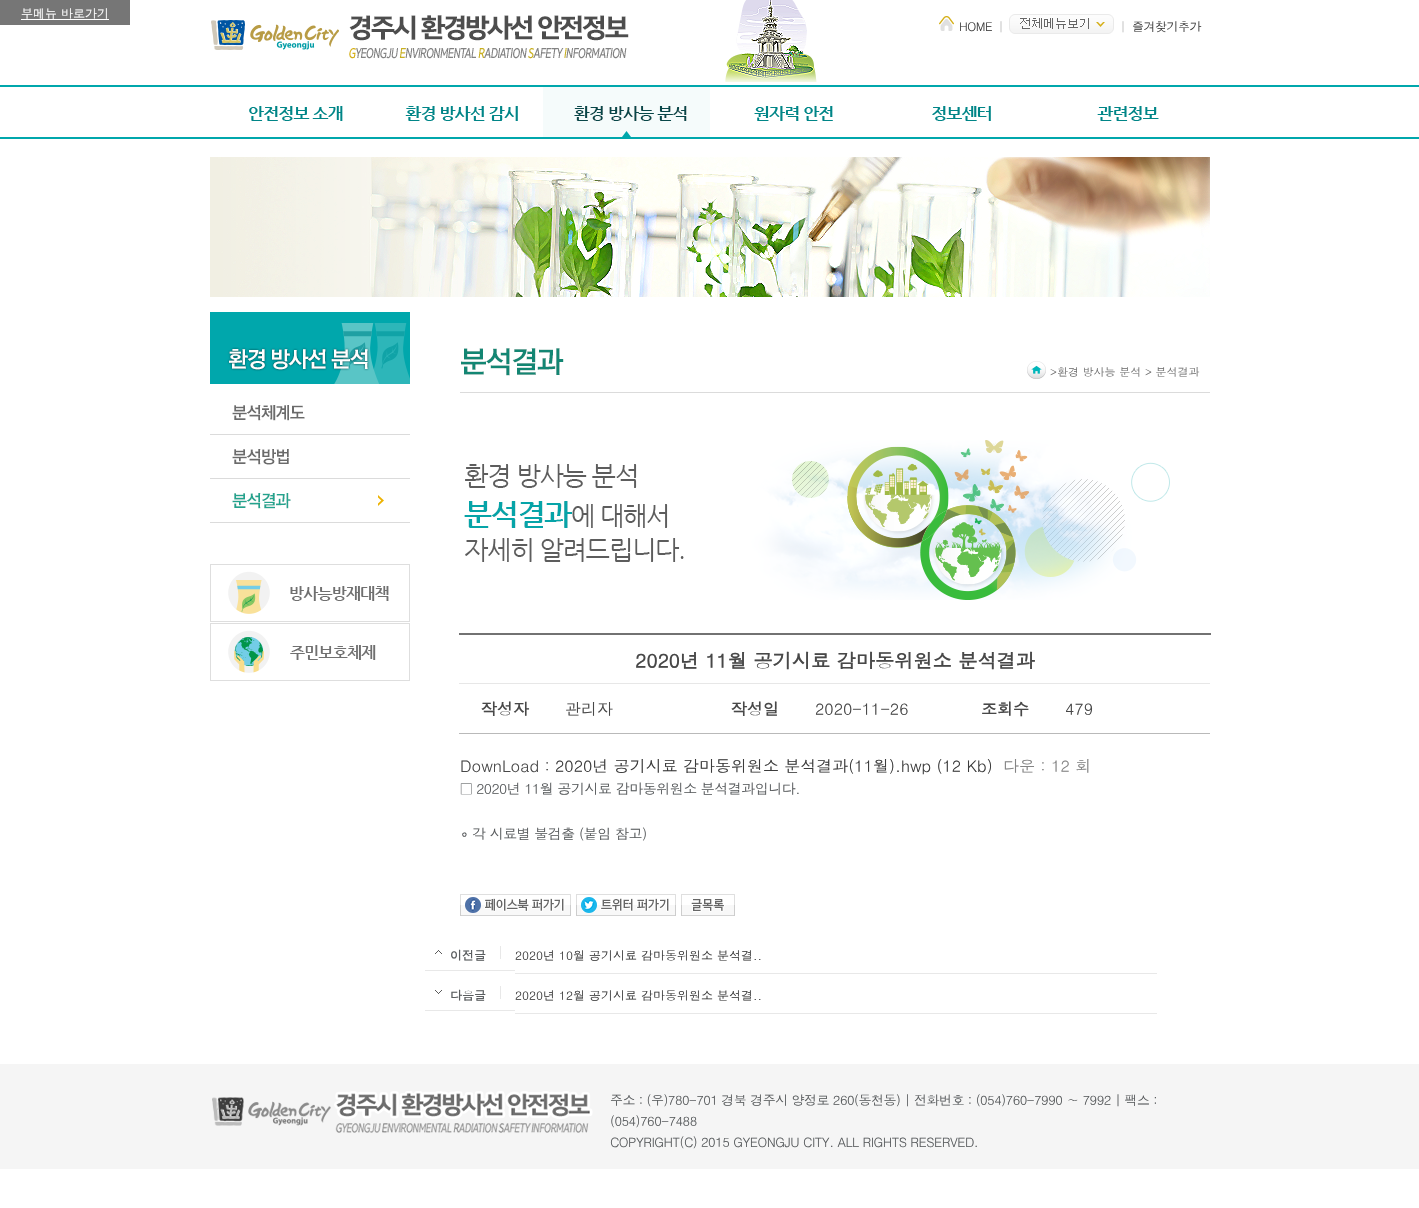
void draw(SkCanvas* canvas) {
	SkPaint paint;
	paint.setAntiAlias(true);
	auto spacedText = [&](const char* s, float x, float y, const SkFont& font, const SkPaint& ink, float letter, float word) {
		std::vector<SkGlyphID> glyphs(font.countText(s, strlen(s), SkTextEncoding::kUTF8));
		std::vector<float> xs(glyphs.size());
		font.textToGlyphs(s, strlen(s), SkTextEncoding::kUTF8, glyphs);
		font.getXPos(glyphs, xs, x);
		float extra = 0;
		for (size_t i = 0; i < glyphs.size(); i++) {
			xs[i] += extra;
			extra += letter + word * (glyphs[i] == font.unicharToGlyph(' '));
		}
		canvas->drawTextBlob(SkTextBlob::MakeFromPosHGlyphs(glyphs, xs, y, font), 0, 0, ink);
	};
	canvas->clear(0xffffffff);
	paint.setColor(0xff767676);
	canvas->drawRect(SkRect::MakeXYWH(0, 0, 130, 25), paint);
	SkFont f1(fontMgr->matchFamilyStyle("Dotum", SkFontStyle::Normal()), 12);
	f1.setSubpixel(true);
	paint.setColor(0xffffffff);
	canvas->drawString("부메뉴 바로가기", 21, 18, f1, paint);
	canvas->drawRect(SkRect::MakeXYWH(21, 19, 88, 1), paint);
	canvas->drawImageRect(SkImages::DeferredFromEncodedData(SkData::MakeFromFileName("img1.png")), SkRect::MakeXYWH(211, 15, 418, 44), SkSamplingOptions());
	canvas->drawImageRect(SkImages::DeferredFromEncodedData(SkData::MakeFromFileName("img2.png")), SkRect::MakeXYWH(725, 0, 92, 82), SkSamplingOptions());
	canvas->drawImageRect(SkImages::DeferredFromEncodedData(SkData::MakeFromFileName("img3.png")), SkRect::MakeXYWH(939, 16, 15, 15), SkSamplingOptions());
	paint.setColor(0xff3c3c3c);
	spacedText("HOME", 959, 31, f1, paint, -0.5, 0);
	paint.setColor(0xffc3c3c3);
	spacedText("|", 998, 31, f1, paint, -0.5, 0);
	canvas->drawImageRect(SkImages::DeferredFromEncodedData(SkData::MakeFromFileName("img4.png")), SkRect::MakeXYWH(1009, 14, 105, 20), SkSamplingOptions());
	spacedText("|", 1120, 31, f1, paint, -0.5, 0);
	paint.setColor(0xff3c3c3c);
	spacedText("즐겨찾기추가", 1132, 31, f1, paint, -0.5, 0);
	paint.setColor(0xff00a7ac);
	canvas->drawRect(SkRect::MakeXYWH(0, 85, 1419, 2), paint);
	canvas->drawRect(SkRect::MakeXYWH(0, 137, 1419, 2), paint);
	canvas->drawImageRect(SkImages::DeferredFromEncodedData(SkData::MakeFromFileName("img5.png")), SkRect::MakeXYWH(249, 106, 94, 15), SkSamplingOptions());
	canvas->drawImageRect(SkImages::DeferredFromEncodedData(SkData::MakeFromFileName("img6.png")), SkRect::MakeXYWH(405, 106, 113, 15), SkSamplingOptions());
	canvas->drawImageRect(SkImages::DeferredFromEncodedData(SkData::MakeFromFileName("img7.png")), SkRect::MakeXYWH(543, 87, 167, 50), SkSamplingOptions());
	canvas->drawImageRect(SkImages::DeferredFromEncodedData(SkData::MakeFromFileName("img8.png")), SkRect::MakeXYWH(754, 106, 79, 15), SkSamplingOptions());
	canvas->drawImageRect(SkImages::DeferredFromEncodedData(SkData::MakeFromFileName("img9.png")), SkRect::MakeXYWH(932, 106, 59, 15), SkSamplingOptions());
	canvas->drawImageRect(SkImages::DeferredFromEncodedData(SkData::MakeFromFileName("img10.png")), SkRect::MakeXYWH(1097, 106, 62, 15), SkSamplingOptions());
	canvas->drawImageRect(SkImages::DeferredFromEncodedData(SkData::MakeFromFileName("img11.png")), SkRect::MakeXYWH(210, 157, 1000, 140), SkSamplingOptions());
	canvas->drawImageRect(SkImages::DeferredFromEncodedData(SkData::MakeFromFileName("img12.png")), SkRect::MakeXYWH(210, 312, 200, 72), SkSamplingOptions());
	canvas->drawImageRect(SkImages::DeferredFromEncodedData(SkData::MakeFromFileName("img13.png")), SkRect::MakeXYWH(210, 405, 200, 30), SkSamplingOptions());
	canvas->drawImageRect(SkImages::DeferredFromEncodedData(SkData::MakeFromFileName("img14.png")), SkRect::MakeXYWH(210, 449, 200, 30), SkSamplingOptions());
	canvas->drawImageRect(SkImages::DeferredFromEncodedData(SkData::MakeFromFileName("img15.png")), SkRect::MakeXYWH(210, 493, 200, 30), SkSamplingOptions());
	canvas->drawImageRect(SkImages::DeferredFromEncodedData(SkData::MakeFromFileName("img16.png")), SkRect::MakeXYWH(210, 564, 200, 58), SkSamplingOptions());
	canvas->drawImageRect(SkImages::DeferredFromEncodedData(SkData::MakeFromFileName("img17.png")), SkRect::MakeXYWH(210, 623, 200, 58), SkSamplingOptions());
	paint.setColor(0xffdbdbdb);
	canvas->drawRect(SkRect::MakeXYWH(460, 392, 750, 1), paint);
	canvas->drawImageRect(SkImages::DeferredFromEncodedData(SkData::MakeFromFileName("img18.png")), SkRect::MakeXYWH(461, 348, 103, 28), SkSamplingOptions());
	canvas->drawImageRect(SkImages::DeferredFromEncodedData(SkData::MakeFromFileName("img19.png")), SkRect::MakeXYWH(1027, 361, 19, 18), SkSamplingOptions());
	SkFont f2(fontMgr->matchFamilyStyle("Dotum", SkFontStyle::Normal()), 11);
	f2.setSubpixel(true);
	paint.setColor(0xff717171);
	canvas->drawString(">환경 방사능 분석 > 분석결과", 1050, 376, f2, paint);
	canvas->drawImageRect(SkImages::DeferredFromEncodedData(SkData::MakeFromFileName("img20.png")), SkRect::MakeXYWH(464, 440, 706, 160), SkSamplingOptions());
	paint.setColor(0xffe7e7e7);
	canvas->drawRect(SkRect::MakeXYWH(459, 683, 751, 1), paint);
	paint.setColor(0xff727272);
	canvas->drawRect(SkRect::MakeXYWH(459, 633, 752, 2), paint);
	SkFont f3(fontMgr->matchFamilyStyle("Dotum", SkFontStyle::Bold()), 19.2);
	f3.setSubpixel(true);
	paint.setColor(0xff484848);
	canvas->drawString("2020년 11월 공기시료 감마동위원소 분석결과", 635, 668, f3, paint);
	SkFont f4(fontMgr->matchFamilyStyle("Dotum", SkFontStyle::Bold()), 16);
	f4.setSubpixel(true);
	canvas->drawString("작성자", 481, 715, f4, paint);
	SkFont f5(fontMgr->matchFamilyStyle("Dotum", SkFontStyle::Normal()), 16);
	f5.setSubpixel(true);
	canvas->drawString("관리자", 565, 715, f5, paint);
	canvas->drawString("작성일", 731, 715, f4, paint);
	canvas->drawString("2020-11-26", 815, 715, f5, paint);
	canvas->drawString("조회수", 981, 715, f4, paint);
	paint.setColor(0xffb9b9b9);
	canvas->drawRect(SkRect::MakeXYWH(459, 733, 751, 1), paint);
	paint.setColor(0xff484848);
	canvas->drawString("479", 1065, 715, f5, paint);
	canvas->drawString("DownLoad :", 460, 772, f5, paint);
	paint.setColor(0xff3c3c3c);
	canvas->drawString("2020년 공기시료 감마동위원소 분석결과(11월).hwp (12 Kb)", 555, 772, f5, paint);
	paint.setColor(0xff848484);
	canvas->drawString("다운 : 12 회", 1003, 772, f5, paint);
	SkFont f6(fontMgr->matchFamilyStyle("Dotum", SkFontStyle::Normal()), 14);
	f6.setSubpixel(true);
	paint.setColor(0xff5a5d5f);
	spacedText("□ 2020년 11월 공기시료 감마동위원소 분석결과입니다.", 460, 794, f6, paint, -0.5, 0);
	SkFont f7(fontMgr->matchFamilyStyle("DejaVu Sans", SkFontStyle::Normal()), 14);
	f7.setSubpixel(true);
	spacedText("∘", 460, 839, f7, paint, -0.5, 0);
	spacedText("각 시료별 불검출 (붙임 참고)", 472, 839, f6, paint, -0.5, 0);
	canvas->drawImageRect(SkImages::DeferredFromEncodedData(SkData::MakeFromFileName("img21.png")), SkRect::MakeXYWH(460, 894, 111, 22), SkSamplingOptions());
	canvas->drawImageRect(SkImages::DeferredFromEncodedData(SkData::MakeFromFileName("img22.png")), SkRect::MakeXYWH(576, 894, 100, 22), SkSamplingOptions());
	canvas->drawImageRect(SkImages::DeferredFromEncodedData(SkData::MakeFromFileName("img23.png")), SkRect::MakeXYWH(681, 894, 54, 22), SkSamplingOptions());
	canvas->drawImageRect(SkImages::DeferredFromEncodedData(SkData::MakeFromFileName("img24.png")), SkRect::MakeXYWH(435, 946, 66, 13), SkSamplingOptions());
	paint.setColor(0xffe8e8e8);
	canvas->drawRect(SkRect::MakeXYWH(425, 970, 90, 1), paint);
	SkFont f8(fontMgr->matchFamilyStyle("Dotum", SkFontStyle::Bold()), 12);
	f8.setSubpixel(true);
	paint.setColor(0xff5a5d5f);
	canvas->drawString("이전글", 450, 960, f8, paint);
	paint.setColor(0xffe8e8e8);
	canvas->drawRect(SkRect::MakeXYWH(515, 973, 642, 1), paint);
	paint.setColor(0xff3c3c3c);
	canvas->drawString("2020년 10월 공기시료 감마동위원소 분석결..", 515, 960, f1, paint);
	canvas->drawImageRect(SkImages::DeferredFromEncodedData(SkData::MakeFromFileName("img25.png")), SkRect::MakeXYWH(435, 986, 66, 13), SkSamplingOptions());
	paint.setColor(0xffe8e8e8);
	canvas->drawRect(SkRect::MakeXYWH(425, 1010, 90, 1), paint);
	paint.setColor(0xff5a5d5f);
	canvas->drawString("다음글", 450, 1000, f8, paint);
	paint.setColor(0xffe8e8e8);
	canvas->drawRect(SkRect::MakeXYWH(515, 1013, 642, 1), paint);
	paint.setColor(0xff3c3c3c);
	canvas->drawString("2020년 12월 공기시료 감마동위원소 분석결..", 515, 1000, f1, paint);
	paint.setColor(0xfff5f5f5);
	canvas->drawRect(SkRect::MakeXYWH(0, 1064, 1419, 105), paint);
	canvas->drawImageRect(SkImages::DeferredFromEncodedData(SkData::MakeFromFileName("img26.png")), SkRect::MakeXYWH(212, 1091, 381, 42), SkSamplingOptions());
	SkFont f9(fontMgr->matchFamilyStyle("Dotum", SkFontStyle::Normal()), 13);
	f9.setSubpixel(true);
	paint.setColor(0xff5a5d5f);
	spacedText("주소 : (우)780-701 경북 경주시 양정로 260(동천동) | 전화번호 : (054)760-7990 ∼ 7992 | 팩스 :", 610, 1105, f9, paint, -0.5, 0);
	spacedText("(054)760-7488", 610, 1126, f9, paint, -0.5, 0);
	spacedText("COPYRIGHT(C) 2015 GYEONGJU CITY. ALL RIGHTS RESERVED.", 610, 1147, f9, paint, -0.5, 0);
}
